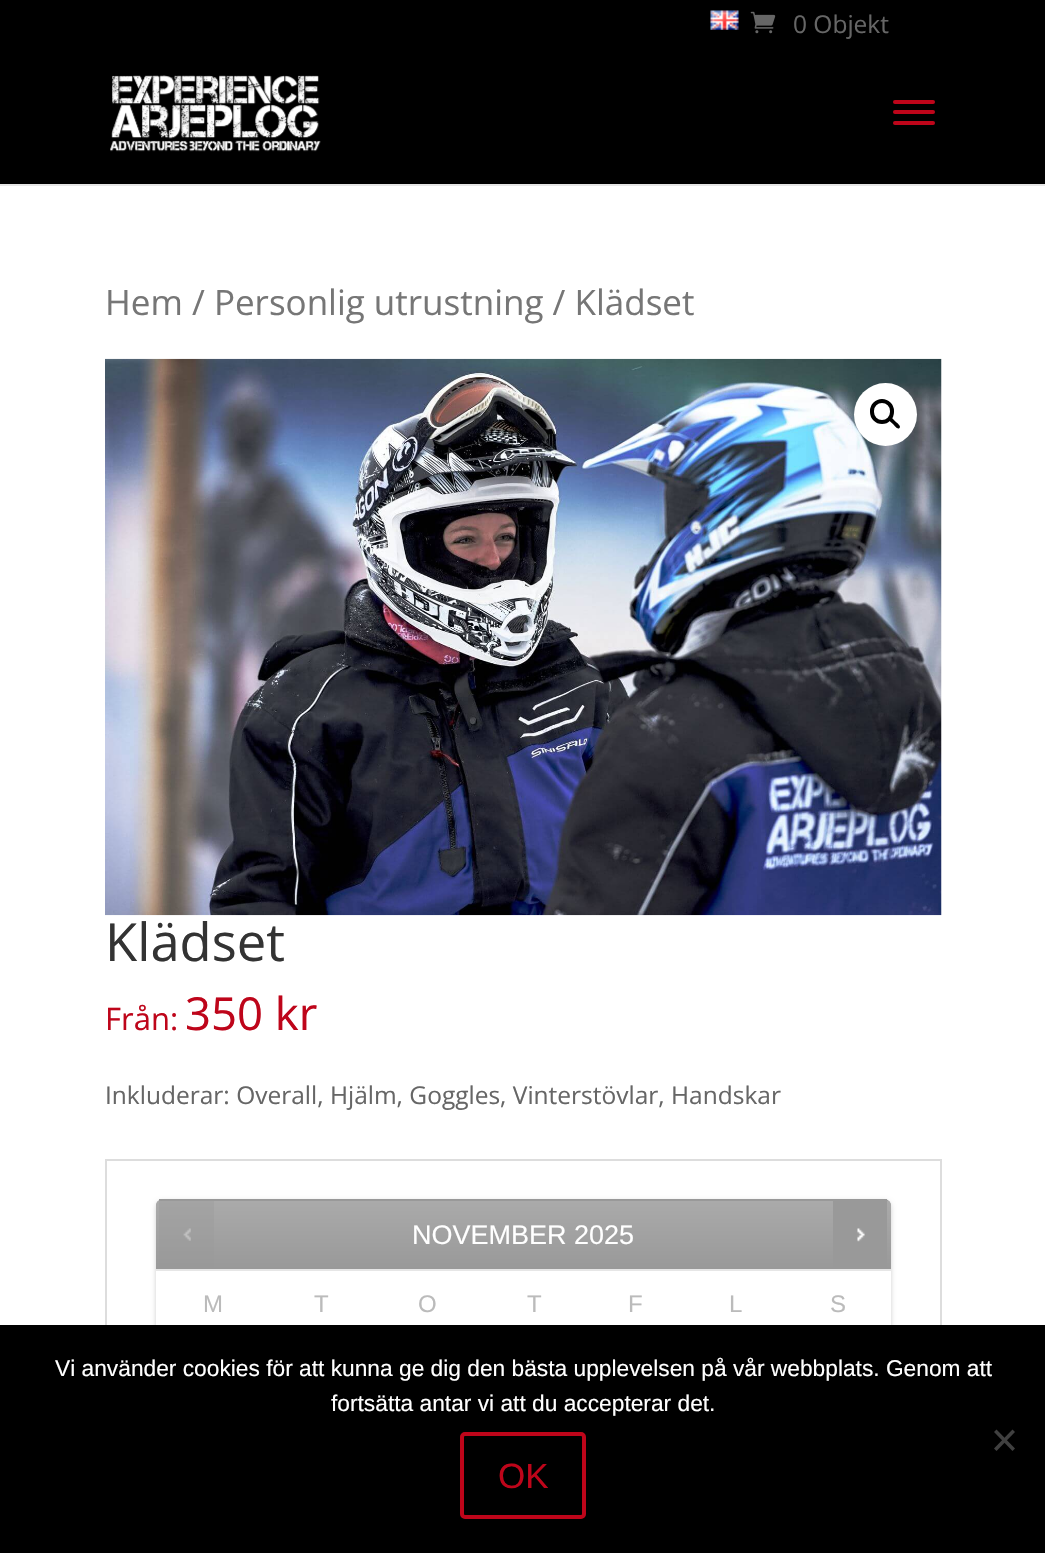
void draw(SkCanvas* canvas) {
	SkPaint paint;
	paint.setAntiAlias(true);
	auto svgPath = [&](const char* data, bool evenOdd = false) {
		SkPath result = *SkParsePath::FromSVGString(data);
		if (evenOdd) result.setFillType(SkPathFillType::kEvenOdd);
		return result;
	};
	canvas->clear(0xffffffff);
	paint.setColor(0xffe6e6e6);
	canvas->drawPath(svgPath("M0 184V186H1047V2H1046V184Z"), paint);
	paint.setColor(0xff000000);
	canvas->drawRect(SkRect::MakeXYWH(0, 0, 1045, 184), paint);
	canvas->drawImageRect(SkImages::DeferredFromEncodedData(SkData::MakeFromFileName("img1.png")), SkRect::MakeXYWH(710, 10, 29, 20), SkSamplingOptions());
	canvas->drawImageRect(SkImages::DeferredFromEncodedData(SkData::MakeFromFileName("img2.png")), SkRect::MakeXYWH(750, 11, 26, 23), SkSamplingOptions());
	SkFont f1(fontMgr->matchFamilyStyle("Open Sans", SkFontStyle::Normal()), 24.5);
	f1.setSubpixel(true);
	paint.setColor(0xff666666);
	canvas->drawString("0 Objekt", 793, 33, f1, paint);
	canvas->drawImageRect(SkImages::DeferredFromEncodedData(SkData::MakeFromFileName("img3.png")), SkRect::MakeXYWH(110, 75, 211, 77), SkSamplingOptions());
	paint.setColor(0xffbe051a);
	canvas->drawRoundRect(SkRect::MakeXYWH(893, 100, 42, 4), 2, 2, paint);
	canvas->drawRoundRect(SkRect::MakeXYWH(893, 110, 42, 4), 2, 2, paint);
	canvas->drawRoundRect(SkRect::MakeXYWH(893, 121, 42, 4), 2, 2, paint);
	SkFont f2(fontMgr->matchFamilyStyle("Open Sans", SkFontStyle::Normal()), 35);
	f2.setSubpixel(true);
	paint.setColor(0xff767676);
	canvas->drawString("Hem / Personlig utrustning / Klädset", 105, 315, f2, paint);
	canvas->drawImageRect(SkImages::DeferredFromEncodedData(SkData::MakeFromFileName("img4.png")), SkRect::MakeXYWH(105, 358, 837, 558), SkSamplingOptions());
	paint.setColor(0xffffffff);
	canvas->drawCircle(885.5, 414.5, 31.5, paint);
	paint.setStroke(true);
	paint.setStrokeWidth(4);
	paint.setColor(0xff000000);
	canvas->drawRoundRect(SkRect::MakeXYWH(872, 401, 20, 21), 10, 10, paint);
	paint.setStroke(false);
	canvas->drawPath(svgPath("M889.5 418C891.5 416 894.5 421 896 422C897 423 901.5 426 899.5 428C897.5 430 894.5 425.5 893.5 424.5C892.5 423.5 887.5 420 889.5 418Z"), paint);
	SkFont f3(fontMgr->matchFamilyStyle("Open Sans", SkFontStyle::Normal()), 52.5);
	f3.setSubpixel(true);
	paint.setColor(0xff333333);
	canvas->drawString("Klädset", 105, 961, f3, paint);
	SkFont f4(fontMgr->matchFamilyStyle("Open Sans", SkFontStyle::Normal()), 31);
	f4.setSubpixel(true);
	paint.setColor(0xffbe051a);
	canvas->drawString("Från:", 105, 1030, f4, paint);
	SkFont f5(fontMgr->matchFamilyStyle("Open Sans", SkFontStyle::Normal()), 45.5);
	f5.setSubpixel(true);
	canvas->drawString("350 kr", 185, 1030, f5, paint);
	paint.setColor(0xff666666);
	canvas->drawString("Inkluderar: Overall, Hjälm, Goggles, Vinterstövlar, Handskar", 105, 1104, f1, paint);
	paint.setStroke(true);
	paint.setStrokeWidth(2);
	paint.setColor(0xffdddddd);
	canvas->drawRect(SkRect::MakeXYWH(106, 1160, 835, 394), paint);
	paint.setStroke(false);
	paint.setColor(0x30000000);
	paint.setMaskFilter(SkMaskFilter::MakeBlur(kNormal_SkBlurStyle, 2.5));
	canvas->drawRoundRect(SkRect::MakeXYWH(156, 1201, 735, 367), 7, 7, paint);
	paint.setMaskFilter(nullptr);
	paint.setColor(0xffffffff);
	canvas->drawRoundRect(SkRect::MakeXYWH(156, 1199, 735, 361), 7, 7, paint);
	paint.setColor(0xff999999);
	canvas->drawPath(svgPath("M163 1199H884C888 1199 891 1202 891 1206V1269H156V1206C156 1202 159 1199 163 1199Z"), paint);
	canvas->save();
	canvas->clipPath(svgPath("M163 1199H884C888 1199 891 1202 891 1206V1269H156V1206C156 1202 159 1199 163 1199Z"), true);
	{
		const SkColor colors[] = {0xff999999, 0xffaaaaaa};
		const float stops[] = {0, 1};
		const SkPoint ends[] = {{523, 1269}, {523, 1201}};
		paint.setShader(SkGradientShader::MakeLinear(ends, colors, stops, 2, SkTileMode::kClamp));
		paint.setAlpha(255);
	}
	canvas->drawRect(SkRect::MakeXYWH(156, 1201, 735, 68), paint);
	canvas->restore();
	paint.setShader(nullptr);
	paint.setColor(0xff999999);
	canvas->drawRect(SkRect::MakeXYWH(159, 1199, 728, 2), paint);
	paint.setColor(0x59999999);
	canvas->drawPath(svgPath("M163 1200H214V1267H159V1201Z"), paint);
	canvas->drawImageRect(SkImages::DeferredFromEncodedData(SkData::MakeFromFileName("img5.png")), SkRect::MakeXYWH(183, 1228, 8, 13), SkSamplingOptions());
	SkFont f6(fontMgr->matchFamilyStyle("Liberation Sans", SkFontStyle::Normal()), 27);
	f6.setSubpixel(true);
	paint.setColor(0xffffffff);
	canvas->drawString("NOVEMBER 2025", 412, 1244, f6, paint);
	paint.setColor(0xff999999);
	canvas->drawPath(svgPath("M887 1201V1267H833V1200H884Z"), paint);
	canvas->drawImageRect(SkImages::DeferredFromEncodedData(SkData::MakeFromFileName("img6.png")), SkRect::MakeXYWH(857, 1228, 8, 14), SkSamplingOptions());
	SkFont f7(fontMgr->matchFamilyStyle("Liberation Sans", SkFontStyle::Normal()), 24);
	f7.setSubpixel(true);
	paint.setColor(0xffbbbbbb);
	canvas->drawString("M", 203, 1312, f7, paint);
	canvas->drawString("T", 314, 1312, f7, paint);
	canvas->drawString("O", 418, 1312, f7, paint);
	canvas->drawString("T", 527, 1312, f7, paint);
	canvas->drawString("F", 628, 1312, f7, paint);
	canvas->drawString("L", 729, 1312, f7, paint);
	paint.setColor(0xffe6e6e6);
	canvas->drawRect(SkRect::MakeXYWH(156, 1269, 735, 2), paint);
	paint.setColor(0xffbbbbbb);
	canvas->drawString("S", 830, 1312, f7, paint);
	paint.setColor(0xff000000);
	canvas->drawRect(SkRect::MakeXYWH(0, 1325, 1045, 228), paint);
	SkFont f8(fontMgr->matchFamilyStyle("Liberation Sans", SkFontStyle::Normal()), 22.75);
	f8.setSubpixel(true);
	paint.setColor(0xffffffff);
	canvas->drawString("Vi använder cookies för att kunna ge dig den bästa upplevelsen på vår webbplats. Genom att", 55, 1376, f8, paint);
	canvas->drawString("fortsätta antar vi att du accepterar det.", 331, 1411, f8, paint);
	paint.setColor(0xff404040);
	canvas->drawPath(svgPath("M1012.5 1429.5L1015 1432L996.5 1451L994 1448.5Z"), paint);
	canvas->drawPath(svgPath("M994 1432L996.5 1429.5L1015 1448.5L1012.5 1451Z"), paint);
	paint.setStroke(true);
	paint.setStrokeWidth(4);
	paint.setColor(0xffbe051a);
	canvas->drawRoundRect(SkRect::MakeXYWH(462, 1434, 122, 83), 3, 3, paint);
	SkFont f9(fontMgr->matchFamilyStyle("Liberation Sans", SkFontStyle::Normal()), 35);
	f9.setSubpixel(true);
	paint.setStroke(false);
	canvas->drawString("OK", 498, 1488, f9, paint);
}
